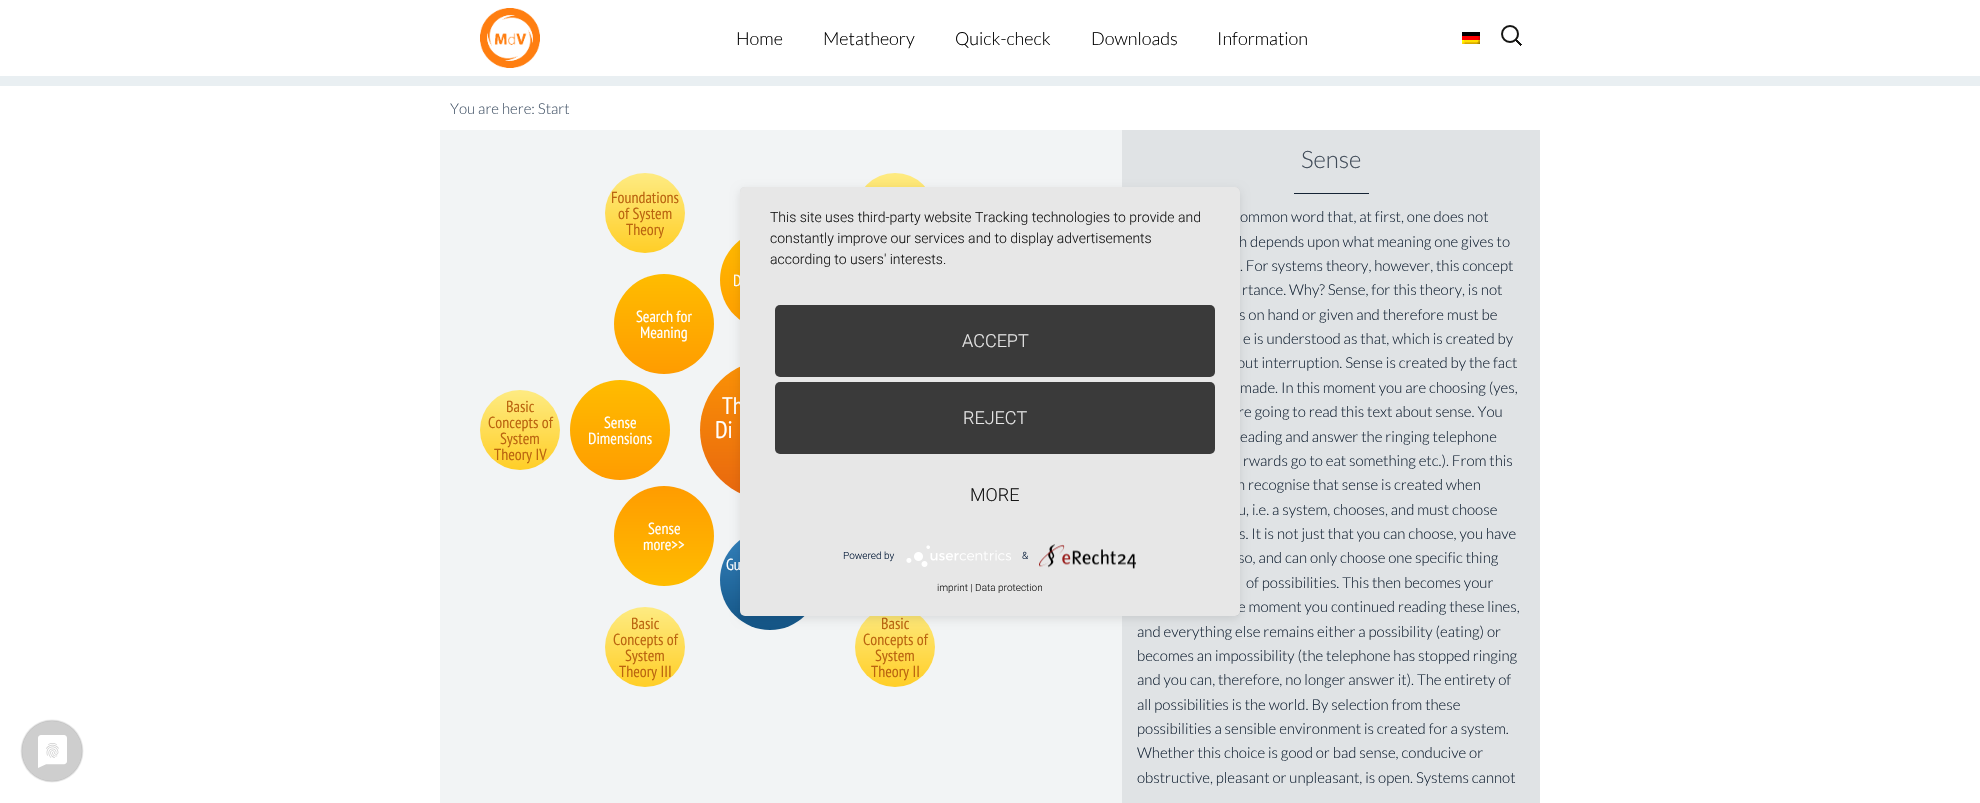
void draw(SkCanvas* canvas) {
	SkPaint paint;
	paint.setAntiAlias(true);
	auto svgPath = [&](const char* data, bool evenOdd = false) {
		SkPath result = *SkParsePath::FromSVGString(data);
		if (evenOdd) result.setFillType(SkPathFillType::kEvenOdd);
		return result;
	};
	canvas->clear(0xffffffff);
	paint.setColor(0xffe9eff2);
	canvas->drawRect(SkRect::MakeXYWH(0, 76, 1980, 10), paint);
	canvas->drawImageRect(SkImages::DeferredFromEncodedData(SkData::MakeFromFileName("img1.png")), SkRect::MakeXYWH(480, 8, 60, 60), SkSamplingOptions());
	SkFont f1(fontMgr->matchFamilyStyle("Lato", SkFontStyle(300, SkFontStyle::kNormal_Width, SkFontStyle::kUpright_Slant)), 18);
	f1.setSubpixel(true);
	paint.setColor(0xff000000);
	canvas->drawString("Home", 736, 45, f1, paint);
	canvas->drawString("Metatheory", 823, 45, f1, paint);
	canvas->drawString("Quick-check", 955, 45, f1, paint);
	canvas->drawString("Downloads", 1091, 45, f1, paint);
	canvas->drawString("Information", 1217, 45, f1, paint);
	canvas->drawImageRect(SkImages::DeferredFromEncodedData(SkData::MakeFromFileName("img2.png")), SkRect::MakeXYWH(1462, 32, 18, 12), SkSamplingOptions());
	canvas->drawImageRect(SkImages::DeferredFromEncodedData(SkData::MakeFromFileName("img3.png")), SkRect::MakeXYWH(1501, 25, 21, 21), SkSamplingOptions());
	paint.setColor(0xfff2f4f5);
	canvas->drawRect(SkRect::MakeXYWH(440, 130, 682, 673), paint);
	SkFont f2(fontMgr->matchFamilyStyle("Lato", SkFontStyle(300, SkFontStyle::kNormal_Width, SkFontStyle::kUpright_Slant)), 15);
	f2.setSubpixel(true);
	paint.setColor(0xff49596c);
	canvas->drawString("You are here: Start", 450, 114, f2, paint);
	{
		const SkColor colors[] = {0xfffeeb82, 0xffffce27};
		const float stops[] = {0, 1};
		const SkPoint ends[] = {{645, 173}, {645, 253}};
		paint.setShader(SkGradientShader::MakeLinear(ends, colors, stops, 2, SkTileMode::kClamp));
		paint.setAlpha(255);
	}
	canvas->drawCircle(645, 213, 40, paint);
	SkFont f3(fontMgr->matchFamilyStyle("PT Sans Narrow", SkFontStyle::Normal()), 16);
	f3.setSubpixel(true);
	paint.setShader(nullptr);
	paint.setColor(0xffbb640f);
	canvas->drawString("Foundations", 611, 203, f3, paint);
	canvas->drawString("of System", 618, 219, f3, paint);
	canvas->drawString("Theory", 626, 235, f3, paint);
	{
		const SkColor colors[] = {0xfffeeb82, 0xffffce27};
		const float stops[] = {0, 1};
		const SkPoint ends[] = {{895, 173}, {895, 253}};
		paint.setShader(SkGradientShader::MakeLinear(ends, colors, stops, 2, SkTileMode::kClamp));
		paint.setAlpha(255);
	}
	canvas->drawCircle(895, 213, 40, paint);
	{
		const SkColor colors[] = {0xffffbc00, 0xffff9c00};
		const float stops[] = {0, 1};
		const SkPoint ends[] = {{770, 230}, {770, 330}};
		paint.setShader(SkGradientShader::MakeLinear(ends, colors, stops, 2, SkTileMode::kClamp));
		paint.setAlpha(255);
	}
	canvas->drawCircle(770, 280, 50, paint);
	paint.setShader(nullptr);
	paint.setColor(0xffffffff);
	canvas->drawString("D", 733, 286, f3, paint);
	{
		const SkColor colors[] = {0xfffb9305, 0xffe8660f};
		const float stops[] = {0, 1};
		const SkPoint ends[] = {{770, 360}, {770, 500}};
		paint.setShader(SkGradientShader::MakeLinear(ends, colors, stops, 2, SkTileMode::kClamp));
		paint.setAlpha(255);
	}
	canvas->drawCircle(770, 430, 70, paint);
	{
		const SkColor colors[] = {0xffffbc00, 0xffff9c00};
		const float stops[] = {0, 1};
		const SkPoint ends[] = {{664, 274}, {664, 374}};
		paint.setShader(SkGradientShader::MakeLinear(ends, colors, stops, 2, SkTileMode::kClamp));
		paint.setAlpha(255);
	}
	canvas->drawCircle(664, 324, 50, paint);
	paint.setShader(nullptr);
	paint.setColor(0xffffffff);
	canvas->drawString("Search for", 636, 322, f3, paint);
	canvas->drawString("Meaning", 640, 338, f3, paint);
	{
		const SkColor colors[] = {0xfffeeb82, 0xffffce27};
		const float stops[] = {0, 1};
		const SkPoint ends[] = {{520, 390}, {520, 470}};
		paint.setShader(SkGradientShader::MakeLinear(ends, colors, stops, 2, SkTileMode::kClamp));
		paint.setAlpha(255);
	}
	canvas->drawCircle(520, 430, 40, paint);
	paint.setShader(nullptr);
	paint.setColor(0xffbb640f);
	canvas->drawString("Basic", 506, 412, f3, paint);
	canvas->drawString("Concepts of", 488, 428, f3, paint);
	canvas->drawString("System", 500, 444, f3, paint);
	canvas->drawString("Theory IV", 494, 460, f3, paint);
	{
		const SkColor colors[] = {0xffffbc00, 0xffff9c00};
		const float stops[] = {0, 1};
		const SkPoint ends[] = {{620, 380}, {620, 480}};
		paint.setShader(SkGradientShader::MakeLinear(ends, colors, stops, 2, SkTileMode::kClamp));
		paint.setAlpha(255);
	}
	canvas->drawCircle(620, 430, 50, paint);
	paint.setShader(nullptr);
	paint.setColor(0xffffffff);
	canvas->drawString("Sense", 604, 428, f3, paint);
	canvas->drawString("Dimensions", 588, 444, f3, paint);
	SkFont f4(fontMgr->matchFamilyStyle("PT Sans Narrow", SkFontStyle::Normal()), 24);
	f4.setSubpixel(true);
	canvas->drawString("Th", 722, 414, f4, paint);
	canvas->drawString("Di", 715, 438, f4, paint);
	{
		const SkColor colors[] = {0xffff9c00, 0xffffbc00};
		const float stops[] = {0, 1};
		const SkPoint ends[] = {{664, 486}, {664, 586}};
		paint.setShader(SkGradientShader::MakeLinear(ends, colors, stops, 2, SkTileMode::kClamp));
		paint.setAlpha(255);
	}
	canvas->drawCircle(664, 536, 50, paint);
	paint.setShader(nullptr);
	paint.setColor(0xffffffff);
	canvas->drawString("Sense", 648, 534, f3, paint);
	canvas->drawString("more>>", 643, 550, f3, paint);
	{
		const SkColor colors[] = {0xff3583be, 0xff135485};
		const float stops[] = {0, 1};
		const SkPoint ends[] = {{770, 530}, {770, 630}};
		paint.setShader(SkGradientShader::MakeLinear(ends, colors, stops, 2, SkTileMode::kClamp));
		paint.setAlpha(255);
	}
	canvas->drawCircle(770, 580, 50, paint);
	paint.setShader(nullptr);
	paint.setColor(0xffffffff);
	canvas->drawString("Gu", 726, 570, f3, paint);
	{
		const SkColor colors[] = {0xfffeeb82, 0xffffce27};
		const float stops[] = {0, 1};
		const SkPoint ends[] = {{645, 607}, {645, 687}};
		paint.setShader(SkGradientShader::MakeLinear(ends, colors, stops, 2, SkTileMode::kClamp));
		paint.setAlpha(255);
	}
	canvas->drawCircle(645, 647, 40, paint);
	paint.setShader(nullptr);
	paint.setColor(0xffbb640f);
	canvas->drawString("Basic", 631, 629, f3, paint);
	canvas->drawString("Concepts of", 613, 645, f3, paint);
	canvas->drawString("System", 625, 661, f3, paint);
	canvas->drawString("Theory III", 619, 677, f3, paint);
	{
		const SkColor colors[] = {0xfffeeb82, 0xffffce27};
		const float stops[] = {0, 1};
		const SkPoint ends[] = {{895, 607}, {895, 687}};
		paint.setShader(SkGradientShader::MakeLinear(ends, colors, stops, 2, SkTileMode::kClamp));
		paint.setAlpha(255);
	}
	canvas->drawCircle(895, 647, 40, paint);
	paint.setShader(nullptr);
	paint.setColor(0xffbb640f);
	canvas->drawString("Basic", 881, 629, f3, paint);
	canvas->drawString("Concepts of", 863, 645, f3, paint);
	canvas->drawString("System", 875, 661, f3, paint);
	canvas->drawString("Theory II", 871, 677, f3, paint);
	paint.setColor(0xffe0e3e5);
	canvas->drawRect(SkRect::MakeXYWH(1122, 130, 418, 673), paint);
	SkFont f5(fontMgr->matchFamilyStyle("Lato", SkFontStyle(300, SkFontStyle::kNormal_Width, SkFontStyle::kUpright_Slant)), 24);
	f5.setSubpixel(true);
	paint.setColor(0xff404b58);
	canvas->drawString("Sense", 1301, 168, f5, paint);
	paint.setColor(0xff152435);
	canvas->drawRect(SkRect::MakeXYWH(1294, 193, 75, 1), paint);
	canvas->drawString("ommon word that, at first, one does not", 1240, 222, f2, paint);
	canvas->drawString("h depends upon what meaning one gives to", 1239, 247, f2, paint);
	canvas->drawString(". For systems theory, however, this concept", 1240, 271, f2, paint);
	canvas->drawString("rtance. Why? Sense, for this theory, is not", 1242, 295, f2, paint);
	canvas->drawString("s on hand or given and therefore must be", 1239, 320, f2, paint);
	canvas->drawString("e is understood as that, which is created by", 1243, 344, f2, paint);
	canvas->drawString("out interruption. Sense is created by the fact", 1237, 368, f2, paint);
	canvas->drawString("made. In this moment you are choosing (yes,", 1240, 393, f2, paint);
	canvas->drawString("re going to read this text about sense. You", 1238, 417, f2, paint);
	canvas->drawString("eading and answer the ringing telephone", 1240, 442, f2, paint);
	canvas->drawString("rwards go to eat something etc.). From this", 1243, 466, f2, paint);
	canvas->drawString("n recognise that sense is created when", 1237, 490, f2, paint);
	canvas->drawString("u, i.e. a system, chooses, and must choose", 1238, 515, f2, paint);
	canvas->drawString("s. It is not just that you can choose, you have", 1239, 539, f2, paint);
	canvas->drawString("so, and can only choose one specific thing", 1238, 563, f2, paint);
	canvas->drawString("of possibilities. This then becomes your", 1246, 588, f2, paint);
	canvas->drawString("e moment you continued reading these lines,", 1238, 612, f2, paint);
	canvas->drawString("and everything else remains either a possibility (eating) or", 1137, 637, f2, paint);
	canvas->drawString("becomes an impossibility (the telephone has stopped ringing", 1137, 661, f2, paint);
	canvas->drawString("and you can, therefore, no longer answer it). The entirety of", 1137, 685, f2, paint);
	canvas->drawString("all possibilities is the world. By selection from these", 1137, 710, f2, paint);
	canvas->drawString("possibilities a sensible environment is created for a system.", 1137, 734, f2, paint);
	canvas->drawString("Whether this choice is good or bad sense, conducive or", 1137, 758, f2, paint);
	canvas->drawString("obstructive, pleasant or unpleasant, is open. Systems cannot", 1137, 783, f2, paint);
	paint.setColor(0x1a000000);
	paint.setMaskFilter(SkMaskFilter::MakeBlur(kNormal_SkBlurStyle, 5));
	canvas->drawRoundRect(SkRect::MakeXYWH(740, 190, 500, 429), 5, 5, paint);
	paint.setMaskFilter(nullptr);
	canvas->save();
	canvas->clipPath(svgPath("M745 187H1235C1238 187 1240 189 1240 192V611C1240 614 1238 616 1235 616H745C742 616 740 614 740 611V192C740 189 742 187 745 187Z"), true);
	paint.setColor(0x4d000000);
	paint.setMaskFilter(SkMaskFilter::MakeBlur(kNormal_SkBlurStyle, 18));
	canvas->drawRect(SkRect::MakeXYWH(740, 193, 500, 429), paint);
	paint.setMaskFilter(nullptr);
	canvas->restore();
	paint.setColor(0xffe7e7e7);
	canvas->drawRoundRect(SkRect::MakeXYWH(740, 187, 500, 429), 5, 5, paint);
	SkFont f6(fontMgr->matchFamilyStyle("Roboto", SkFontStyle(300, SkFontStyle::kNormal_Width, SkFontStyle::kUpright_Slant)), 14);
	f6.setSubpixel(true);
	paint.setColor(0xff161616);
	canvas->drawString("This site uses third-party website Tracking technologies to provide and", 770, 222, f6, paint);
	canvas->drawString("constantly improve our services and to display advertisements", 770, 243, f6, paint);
	canvas->drawString("according to users' interests.", 770, 264, f6, paint);
	paint.setColor(0xff3a3a3a);
	canvas->drawRoundRect(SkRect::MakeXYWH(775, 305, 440, 72), 5, 5, paint);
	SkFont f7(fontMgr->matchFamilyStyle("Roboto", SkFontStyle(300, SkFontStyle::kNormal_Width, SkFontStyle::kUpright_Slant)), 18);
	f7.setSubpixel(true);
	paint.setColor(0xffe6e6e6);
	canvas->drawString("ACCEPT", 962, 347, f7, paint);
	paint.setColor(0xff3a3a3a);
	canvas->drawRoundRect(SkRect::MakeXYWH(775, 382, 440, 72), 5, 5, paint);
	paint.setColor(0xffe6e6e6);
	canvas->drawString("REJECT", 963, 424, f7, paint);
	paint.setColor(0xff161616);
	canvas->drawString("MORE", 970, 501, f7, paint);
	SkFont f8(fontMgr->matchFamilyStyle("Roboto", SkFontStyle(300, SkFontStyle::kNormal_Width, SkFontStyle::kUpright_Slant)), 10);
	f8.setSubpixel(true);
	paint.setColor(0xff021836);
	canvas->drawString("Powered by", 843, 559, f8, paint);
	canvas->drawImageRect(SkImages::DeferredFromEncodedData(SkData::MakeFromFileName("img4.png")), SkRect::MakeXYWH(906, 545, 105, 22), SkSamplingOptions());
	canvas->drawString("&", 1022, 559, f8, paint);
	canvas->drawImageRect(SkImages::DeferredFromEncodedData(SkData::MakeFromFileName("img5.png")), SkRect::MakeXYWH(1039, 544, 97, 25), SkSamplingOptions());
	paint.setColor(0xff161616);
	canvas->drawString("imprint | Data protection", 937, 591, f8, paint);
	canvas->drawImageRect(SkImages::DeferredFromEncodedData(SkData::MakeFromFileName("img6.png")), SkRect::MakeXYWH(20, 719, 64, 64), SkSamplingOptions());
}
